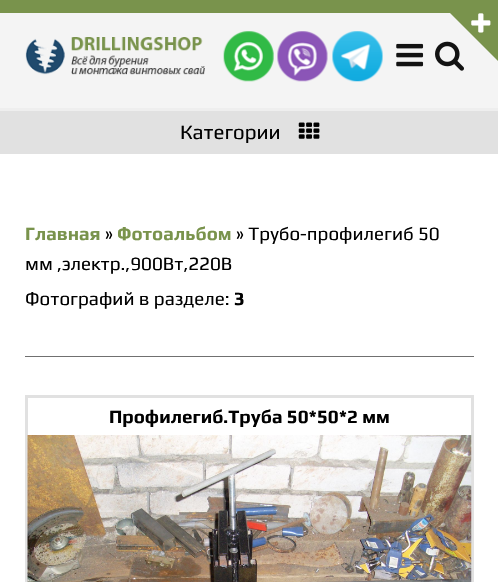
void draw(SkCanvas* canvas) {
	SkPaint paint;
	paint.setAntiAlias(true);
	auto svgPath = [&](const char* data, bool evenOdd = false) {
		SkPath result = *SkParsePath::FromSVGString(data);
		if (evenOdd) result.setFillType(SkPathFillType::kEvenOdd);
		return result;
	};
	canvas->clear(0xffffffff);
	paint.setColor(0xff79934c);
	canvas->drawRect(SkRect::MakeXYWH(0, 0, 498, 13), paint);
	paint.setColor(0xfff4f4f4);
	canvas->drawRect(SkRect::MakeXYWH(0, 13, 498, 95), paint);
	canvas->drawImageRect(SkImages::DeferredFromEncodedData(SkData::MakeFromFileName("img1.png")), SkRect::MakeXYWH(25, 37, 180, 38), SkSamplingOptions());
	canvas->drawImageRect(SkImages::DeferredFromEncodedData(SkData::MakeFromFileName("img2.png")), SkRect::MakeXYWH(223, 31, 51, 51), SkSamplingOptions());
	canvas->drawImageRect(SkImages::DeferredFromEncodedData(SkData::MakeFromFileName("img3.png")), SkRect::MakeXYWH(277, 31, 51, 51), SkSamplingOptions());
	canvas->drawImageRect(SkImages::DeferredFromEncodedData(SkData::MakeFromFileName("img4.png")), SkRect::MakeXYWH(332, 31, 51, 51), SkSamplingOptions());
	canvas->drawImageRect(SkImages::DeferredFromEncodedData(SkData::MakeFromFileName("img5.png")), SkRect::MakeXYWH(396, 43, 28, 24), SkSamplingOptions());
	paint.setColor(0xff79934c);
	canvas->drawPath(svgPath("M449 12H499V62Z"), paint);
	canvas->drawImageRect(SkImages::DeferredFromEncodedData(SkData::MakeFromFileName("img6.png")), SkRect::MakeXYWH(435, 41, 29, 30), SkSamplingOptions());
	canvas->drawImageRect(SkImages::DeferredFromEncodedData(SkData::MakeFromFileName("img7.png")), SkRect::MakeXYWH(471, 13, 20, 20), SkSamplingOptions());
	paint.setColor(0xffeeeeee);
	canvas->drawRect(SkRect::MakeXYWH(0, 108, 498, 3), paint);
	paint.setColor(0xffe1e1e1);
	canvas->drawRect(SkRect::MakeXYWH(0, 111, 498, 43), paint);
	SkFont f1(fontMgr->matchFamilyStyle("Play", SkFontStyle::Normal()), 20.5);
	f1.setSubpixel(true);
	paint.setColor(0xff000000);
	canvas->drawString("Категории", 180, 139, f1, paint);
	canvas->drawImageRect(SkImages::DeferredFromEncodedData(SkData::MakeFromFileName("img8.png")), SkRect::MakeXYWH(298, 122, 22, 17), SkSamplingOptions());
	SkFont f2(fontMgr->matchFamilyStyle("Play", SkFontStyle::Bold()), 18.75);
	f2.setSubpixel(true);
	paint.setColor(0xff79934c);
	canvas->drawString("Главная", 25, 240, f2, paint);
	SkFont f3(fontMgr->matchFamilyStyle("Play", SkFontStyle::Normal()), 18.75);
	f3.setSubpixel(true);
	paint.setColor(0xff000000);
	canvas->drawString("»", 105, 240, f3, paint);
	paint.setColor(0xff79934c);
	canvas->drawString("Фотоальбом", 117, 240, f2, paint);
	paint.setColor(0xff000000);
	canvas->drawString("» Трубо-профилегиб 50", 236, 240, f3, paint);
	canvas->drawString("мм ,электр.,900Вт,220В", 25, 270, f3, paint);
	canvas->drawString("Фотографий в разделе:", 25, 305, f3, paint);
	canvas->drawString("3", 234, 305, f2, paint);
	paint.setColor(0xff707070);
	canvas->drawRect(SkRect::MakeXYWH(25, 356, 449, 1), paint);
	paint.setStroke(true);
	paint.setStrokeWidth(3);
	paint.setColor(0xffe1e1e1);
	canvas->drawRect(SkRect::MakeXYWH(26.5, 396.5, 446, 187), paint);
	paint.setStroke(false);
	paint.setColor(0xff000000);
	canvas->drawString("Профилегиб.Труба 50*50*2 мм", 109, 423, f2, paint);
	canvas->drawImageRect(SkImages::DeferredFromEncodedData(SkData::MakeFromFileName("img9.png")), SkRect::MakeXYWH(27, 435, 445, 147), SkSamplingOptions());
}
